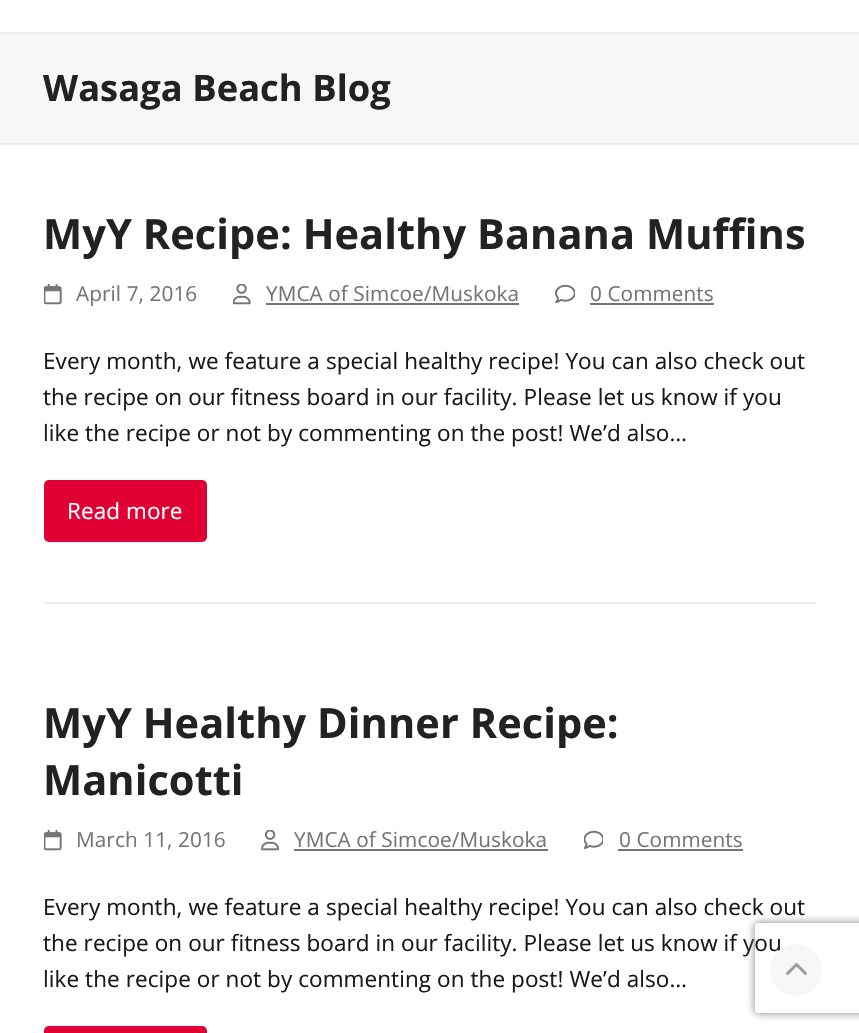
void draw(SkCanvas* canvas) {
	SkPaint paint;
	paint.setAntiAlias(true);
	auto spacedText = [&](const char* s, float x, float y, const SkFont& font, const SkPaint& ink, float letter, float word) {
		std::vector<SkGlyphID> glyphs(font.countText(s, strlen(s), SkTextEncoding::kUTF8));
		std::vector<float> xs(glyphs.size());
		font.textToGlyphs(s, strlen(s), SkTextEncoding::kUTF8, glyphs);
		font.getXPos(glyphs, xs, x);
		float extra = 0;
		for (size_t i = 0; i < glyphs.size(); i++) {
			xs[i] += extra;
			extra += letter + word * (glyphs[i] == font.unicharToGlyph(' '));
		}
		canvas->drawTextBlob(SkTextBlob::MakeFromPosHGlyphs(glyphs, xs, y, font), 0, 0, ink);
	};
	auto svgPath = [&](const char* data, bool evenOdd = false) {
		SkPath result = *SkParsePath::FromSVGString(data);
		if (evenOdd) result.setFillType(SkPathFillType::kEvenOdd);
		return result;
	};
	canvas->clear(0xffffffff);
	paint.setColor(0xfff7f7f7);
	canvas->drawRect(SkRect::MakeXYWH(0, 34, 859, 109), paint);
	paint.setColor(0xffeeeeee);
	canvas->drawRect(SkRect::MakeXYWH(0, 32, 859, 2), paint);
	canvas->drawRect(SkRect::MakeXYWH(0, 143, 859, 2), paint);
	SkFont f1(fontMgr->matchFamilyStyle("Open Sans", SkFontStyle::Bold()), 36.25);
	f1.setSubpixel(true);
	paint.setColor(0xff222222);
	spacedText("Wasaga Beach Blog", 43, 101, f1, paint, 0.08, 0);
	SkFont f2(fontMgr->matchFamilyStyle("Open Sans", SkFontStyle::Bold()), 41.5);
	f2.setSubpixel(true);
	spacedText("MyY Recipe: Healthy Banana Muffins", 43, 249, f2, paint, 0.08, 0);
	canvas->drawImageRect(SkImages::DeferredFromEncodedData(SkData::MakeFromFileName("img1.png")), SkRect::MakeXYWH(44, 284, 18, 21), SkSamplingOptions());
	SkFont f3(fontMgr->matchFamilyStyle("Open Sans", SkFontStyle::Normal()), 20.75);
	f3.setSubpixel(true);
	paint.setColor(0xff757575);
	spacedText("April 7, 2016", 76, 301, f3, paint, 0.08, 0);
	canvas->drawImageRect(SkImages::DeferredFromEncodedData(SkData::MakeFromFileName("img2.png")), SkRect::MakeXYWH(233, 284, 18, 21), SkSamplingOptions());
	spacedText("YMCA of Simcoe/Muskoka", 266, 301, f3, paint, 0.08, 0);
	canvas->drawRect(SkRect::MakeXYWH(266, 303, 253, 2), paint);
	canvas->drawImageRect(SkImages::DeferredFromEncodedData(SkData::MakeFromFileName("img3.png")), SkRect::MakeXYWH(555, 284, 20, 19), SkSamplingOptions());
	spacedText("0 Comments", 590, 301, f3, paint, 0.08, 0);
	canvas->drawRect(SkRect::MakeXYWH(590, 303, 124, 2), paint);
	SkFont f4(fontMgr->matchFamilyStyle("Open Sans", SkFontStyle::Normal()), 22.5);
	f4.setSubpixel(true);
	paint.setColor(0xff191919);
	spacedText("Every month, we feature a special healthy recipe! You can also check out", 43, 369, f4, paint, 0.08, 0);
	spacedText("the recipe on our fitness board in our facility. Please let us know if you", 43, 405, f4, paint, 0.08, 0);
	spacedText("like the recipe or not by commenting on the post! We’d also…", 43, 441, f4, paint, 0.08, 0);
	paint.setColor(0xffe00034);
	canvas->drawRoundRect(SkRect::MakeXYWH(44, 480, 163, 62), 5, 5, paint);
	paint.setColor(0xffffffff);
	spacedText("Read more", 67, 519, f4, paint, 0.08, 0);
	paint.setColor(0xffeeeeee);
	canvas->drawRect(SkRect::MakeXYWH(44, 602, 772, 2), paint);
	paint.setColor(0xff222222);
	spacedText("MyY Healthy Dinner Recipe:", 43, 738, f2, paint, 0.08, 0);
	spacedText("Manicotti", 43, 795, f2, paint, 0.08, 0);
	canvas->drawImageRect(SkImages::DeferredFromEncodedData(SkData::MakeFromFileName("img1.png")), SkRect::MakeXYWH(44, 830, 18, 21), SkSamplingOptions());
	paint.setColor(0xff757575);
	spacedText("March 11, 2016", 76, 847, f3, paint, 0.08, 0);
	canvas->drawImageRect(SkImages::DeferredFromEncodedData(SkData::MakeFromFileName("img4.png")), SkRect::MakeXYWH(261, 830, 18, 21), SkSamplingOptions());
	spacedText("YMCA of Simcoe/Muskoka", 294, 847, f3, paint, 0.08, 0);
	canvas->drawRect(SkRect::MakeXYWH(294, 849, 254, 2), paint);
	canvas->drawImageRect(SkImages::DeferredFromEncodedData(SkData::MakeFromFileName("img5.png")), SkRect::MakeXYWH(584, 830, 19, 19), SkSamplingOptions());
	spacedText("0 Comments", 619, 847, f3, paint, 0.08, 0);
	canvas->drawRect(SkRect::MakeXYWH(618, 849, 125, 2), paint);
	paint.setColor(0xff191919);
	spacedText("Every month, we feature a special healthy recipe! You can also check out", 43, 915, f4, paint, 0.08, 0);
	spacedText("the recipe on our fitness board in our facility. Please let us know if you", 43, 951, f4, paint, 0.08, 0);
	spacedText("like the recipe or not by commenting on the post! We’d also…", 43, 987, f4, paint, 0.08, 0);
	paint.setColor(0xffe00034);
	canvas->drawRoundRect(SkRect::MakeXYWH(44, 1026, 163, 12), 5, 5, paint);
	canvas->save();
	canvas->clipPath(svgPath("M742 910H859V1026H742ZM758 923H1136C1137.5 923 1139 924.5 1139 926V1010C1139 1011.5 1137.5 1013 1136 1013H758C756.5 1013 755 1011.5 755 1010V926C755 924.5 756.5 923 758 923Z", true), true);
	paint.setColor(0xff808080);
	paint.setMaskFilter(SkMaskFilter::MakeBlur(kNormal_SkBlurStyle, 4));
	canvas->drawRoundRect(SkRect::MakeXYWH(755, 923, 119, 90), 3, 3, paint);
	paint.setMaskFilter(nullptr);
	canvas->restore();
	paint.setColor(0xfff7f7f7);
	canvas->drawCircle(796, 970, 26, paint);
	canvas->drawImageRect(SkImages::DeferredFromEncodedData(SkData::MakeFromFileName("img6.png")), SkRect::MakeXYWH(786, 963, 21, 12), SkSamplingOptions());
}
